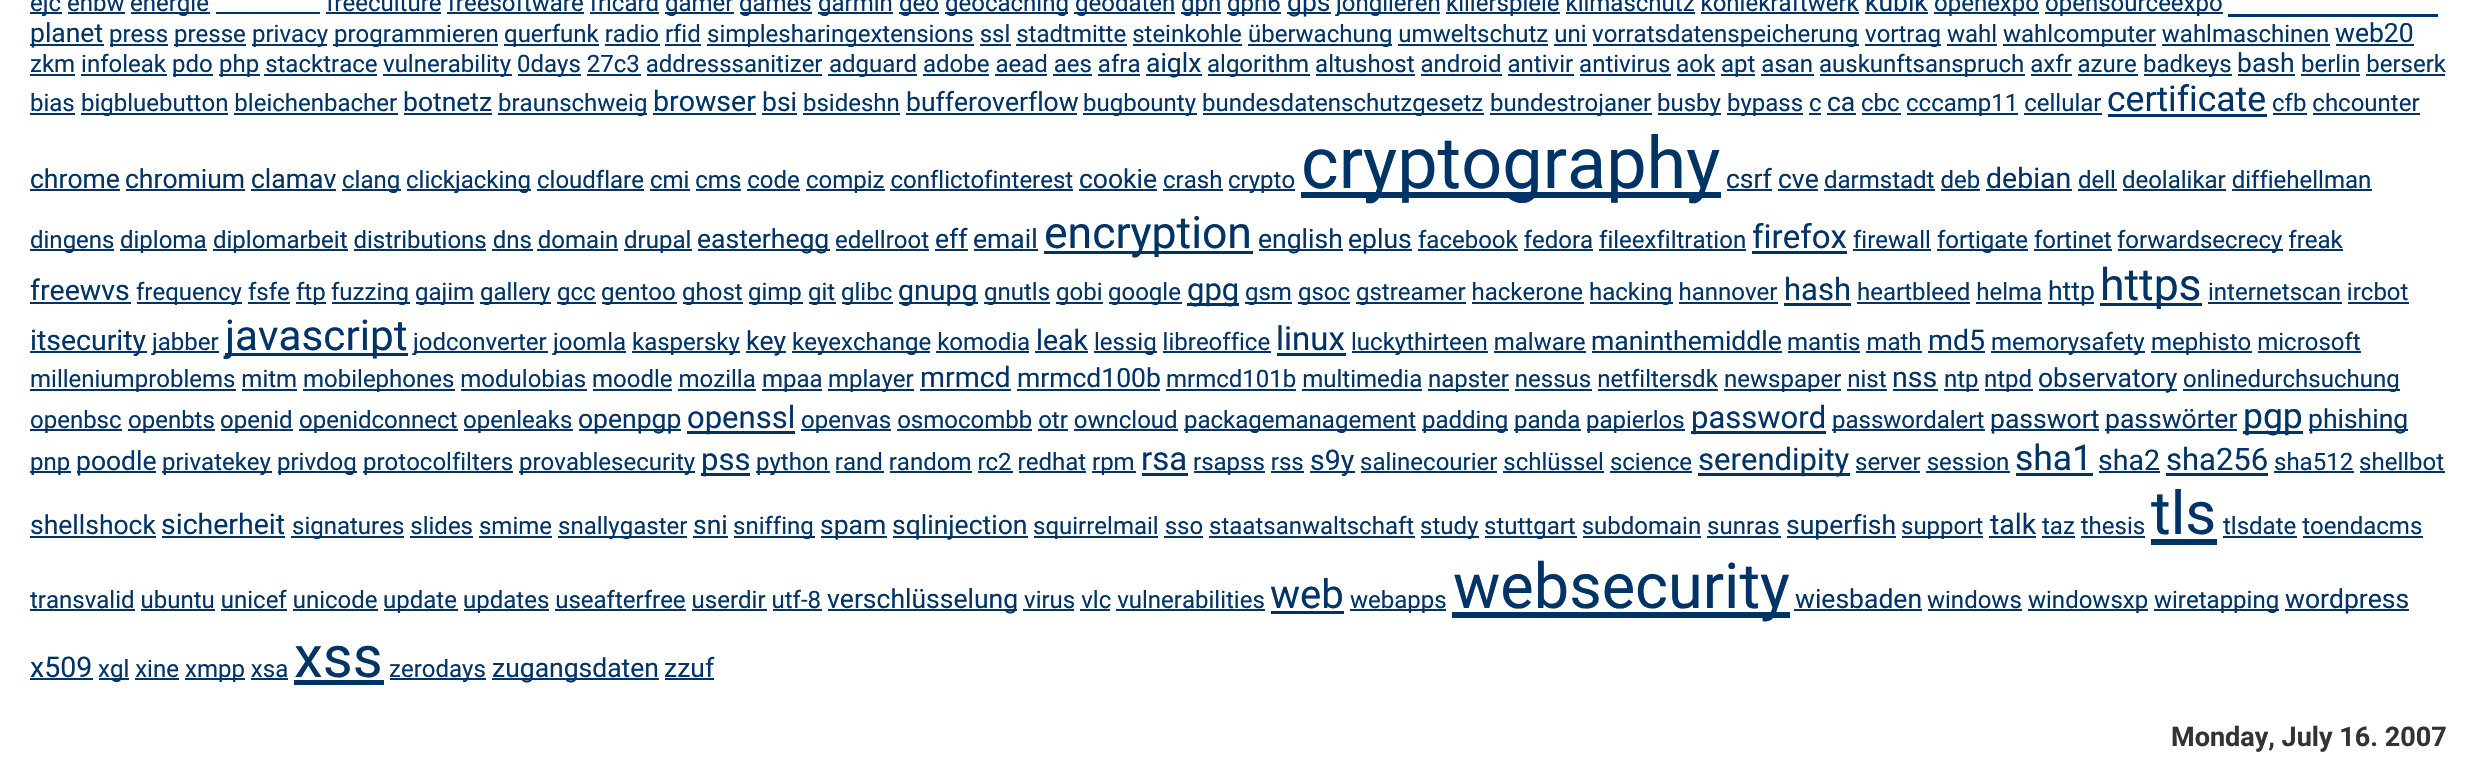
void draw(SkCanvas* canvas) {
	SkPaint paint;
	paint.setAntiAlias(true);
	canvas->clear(0xffffffff);
	paint.setColor(0xff003366);
	canvas->drawRect(SkRect::MakeXYWH(30, 12, 32, 2), paint);
	SkFont f1(fontMgr->matchFamilyStyle("Roboto", SkFontStyle::Normal()), 24);
	f1.setSubpixel(true);
	canvas->drawString("ejc enbw", 30, 11, f1, paint);
	canvas->drawRect(SkRect::MakeXYWH(131, 12, 79, 2), paint);
	canvas->drawString("energie", 130, 11, f1, paint);
	canvas->drawString("freeculture freesoftware fricard", 326, 11, f1, paint);
	canvas->drawRect(SkRect::MakeXYWH(326, 12, 115, 2), paint);
	canvas->drawRect(SkRect::MakeXYWH(665, 12, 69, 2), paint);
	canvas->drawString("gamer", 665, 11, f1, paint);
	canvas->drawRect(SkRect::MakeXYWH(740, 12, 72, 2), paint);
	canvas->drawString("games", 739, 11, f1, paint);
	canvas->drawRect(SkRect::MakeXYWH(818, 12, 75, 2), paint);
	canvas->drawString("garmin", 818, 11, f1, paint);
	canvas->drawRect(SkRect::MakeXYWH(899, 12, 40, 2), paint);
	canvas->drawString("geo", 899, 11, f1, paint);
	canvas->drawRect(SkRect::MakeXYWH(945, 12, 123, 2), paint);
	canvas->drawString("geocaching", 945, 11, f1, paint);
	canvas->drawRect(SkRect::MakeXYWH(1074, 12, 101, 2), paint);
	canvas->drawString("geodaten", 1075, 11, f1, paint);
	canvas->drawRect(SkRect::MakeXYWH(1181, 12, 40, 2), paint);
	canvas->drawString("gpn", 1181, 11, f1, paint);
	canvas->drawRect(SkRect::MakeXYWH(1227, 12, 54, 2), paint);
	canvas->drawString("gpn6", 1227, 11, f1, paint);
	canvas->drawRect(SkRect::MakeXYWH(1287, 12, 44, 2), paint);
	SkFont f2(fontMgr->matchFamilyStyle("Roboto", SkFontStyle::Normal()), 26.5);
	f2.setSubpixel(true);
	canvas->drawString("gps", 1287, 11, f2, paint);
	canvas->drawRect(SkRect::MakeXYWH(1337, 12, 103, 2), paint);
	canvas->drawString("jonglieren", 1336, 11, f1, paint);
	canvas->drawRect(SkRect::MakeXYWH(1446, 12, 114, 2), paint);
	canvas->drawString("killerspiele klimaschutz kohlekraftwerk", 1446, 11, f1, paint);
	canvas->drawString("kubik", 1865, 11, f2, paint);
	canvas->drawRect(SkRect::MakeXYWH(1865, 12, 63, 2), paint);
	canvas->drawRect(SkRect::MakeXYWH(1934, 12, 105, 2), paint);
	canvas->drawString("openexpo", 1934, 11, f1, paint);
	canvas->drawRect(SkRect::MakeXYWH(2045, 12, 178, 2), paint);
	canvas->drawString("opensourceexpo", 2045, 11, f1, paint);
	canvas->drawRect(SkRect::MakeXYWH(68, 12, 57, 2), paint);
	canvas->drawRect(SkRect::MakeXYWH(216, 12, 104, 2), paint);
	canvas->drawRect(SkRect::MakeXYWH(447, 12, 137, 2), paint);
	canvas->drawRect(SkRect::MakeXYWH(590, 12, 69, 2), paint);
	canvas->drawRect(SkRect::MakeXYWH(1566, 12, 129, 2), paint);
	canvas->drawRect(SkRect::MakeXYWH(1701, 12, 158, 2), paint);
	canvas->drawRect(SkRect::MakeXYWH(2228, 14, 210, 3), paint);
	canvas->drawRect(SkRect::MakeXYWH(30, 44, 74, 2), paint);
	canvas->drawString("planet", 30, 42, f2, paint);
	canvas->drawRect(SkRect::MakeXYWH(110, 44, 58, 2), paint);
	canvas->drawString("press", 109, 42, f1, paint);
	canvas->drawRect(SkRect::MakeXYWH(174, 44, 72, 2), paint);
	canvas->drawString("presse", 174, 42, f1, paint);
	canvas->drawRect(SkRect::MakeXYWH(252, 44, 75, 2), paint);
	canvas->drawString("privacy", 252, 42, f1, paint);
	canvas->drawRect(SkRect::MakeXYWH(333, 44, 165, 2), paint);
	canvas->drawString("programmieren", 334, 42, f1, paint);
	canvas->drawRect(SkRect::MakeXYWH(504, 44, 95, 2), paint);
	canvas->drawString("querfunk radio rfid", 504, 42, f1, paint);
	canvas->drawRect(SkRect::MakeXYWH(707, 44, 267, 2), paint);
	canvas->drawString("simplesharingextensions ssl stadtmitte steinkohle", 707, 42, f1, paint);
	canvas->drawRect(SkRect::MakeXYWH(1248, 44, 144, 2), paint);
	canvas->drawString("überwachung umweltschutz uni", 1248, 42, f1, paint);
	canvas->drawRect(SkRect::MakeXYWH(1593, 44, 266, 2), paint);
	canvas->drawString("vorratsdatenspeicherung", 1592, 42, f1, paint);
	canvas->drawRect(SkRect::MakeXYWH(1865, 44, 76, 2), paint);
	canvas->drawString("vortrag wahl", 1865, 42, f1, paint);
	canvas->drawRect(SkRect::MakeXYWH(2003, 44, 153, 2), paint);
	canvas->drawString("wahlcomputer wahlmaschinen", 2003, 42, f1, paint);
	canvas->drawString("web20", 2335, 42, f2, paint);
	canvas->drawRect(SkRect::MakeXYWH(2336, 44, 78, 2), paint);
	canvas->drawRect(SkRect::MakeXYWH(605, 44, 55, 2), paint);
	canvas->drawRect(SkRect::MakeXYWH(665, 44, 36, 2), paint);
	canvas->drawRect(SkRect::MakeXYWH(980, 44, 31, 2), paint);
	canvas->drawRect(SkRect::MakeXYWH(1016, 44, 111, 2), paint);
	canvas->drawRect(SkRect::MakeXYWH(1133, 44, 109, 2), paint);
	canvas->drawRect(SkRect::MakeXYWH(1398, 44, 150, 2), paint);
	canvas->drawRect(SkRect::MakeXYWH(1554, 44, 33, 2), paint);
	canvas->drawRect(SkRect::MakeXYWH(1947, 44, 50, 2), paint);
	canvas->drawRect(SkRect::MakeXYWH(2162, 44, 168, 2), paint);
	canvas->drawString("zkm infoleak", 30, 72, f1, paint);
	canvas->drawRect(SkRect::MakeXYWH(30, 74, 45, 2), paint);
	canvas->drawRect(SkRect::MakeXYWH(173, 74, 40, 2), paint);
	canvas->drawString("pdo", 172, 72, f1, paint);
	canvas->drawRect(SkRect::MakeXYWH(219, 74, 41, 2), paint);
	canvas->drawString("php stacktrace", 219, 72, f1, paint);
	canvas->drawRect(SkRect::MakeXYWH(383, 74, 129, 2), paint);
	canvas->drawString("vulnerability", 383, 72, f1, paint);
	canvas->drawRect(SkRect::MakeXYWH(518, 74, 63, 2), paint);
	canvas->drawString("0days 27c3 addresssanitizer", 517, 72, f1, paint);
	canvas->drawRect(SkRect::MakeXYWH(828, 74, 89, 2), paint);
	canvas->drawString("adguard adobe aead aes afra", 829, 72, f1, paint);
	canvas->drawRect(SkRect::MakeXYWH(1146, 74, 56, 2), paint);
	canvas->drawString("aiglx", 1146, 72, f2, paint);
	canvas->drawRect(SkRect::MakeXYWH(1208, 74, 102, 2), paint);
	canvas->drawString("algorithm altushost android antivir antivirus aok", 1207, 72, f1, paint);
	canvas->drawRect(SkRect::MakeXYWH(1721, 74, 34, 2), paint);
	canvas->drawString("apt asan", 1721, 72, f1, paint);
	canvas->drawRect(SkRect::MakeXYWH(1820, 74, 205, 2), paint);
	canvas->drawString("auskunftsanspruch axfr azure", 1819, 72, f1, paint);
	canvas->drawRect(SkRect::MakeXYWH(2144, 74, 88, 2), paint);
	canvas->drawString("badkeys", 2143, 72, f1, paint);
	canvas->drawString("bash", 2237, 72, f2, paint);
	canvas->drawRect(SkRect::MakeXYWH(2238, 74, 57, 2), paint);
	canvas->drawString("berlin berserk", 2301, 72, f1, paint);
	canvas->drawRect(SkRect::MakeXYWH(2301, 74, 59, 2), paint);
	canvas->drawRect(SkRect::MakeXYWH(81, 74, 86, 2), paint);
	canvas->drawRect(SkRect::MakeXYWH(264, 74, 113, 2), paint);
	canvas->drawRect(SkRect::MakeXYWH(587, 74, 54, 2), paint);
	canvas->drawRect(SkRect::MakeXYWH(647, 74, 175, 2), paint);
	canvas->drawRect(SkRect::MakeXYWH(923, 74, 66, 2), paint);
	canvas->drawRect(SkRect::MakeXYWH(995, 74, 52, 2), paint);
	canvas->drawRect(SkRect::MakeXYWH(1053, 74, 39, 2), paint);
	canvas->drawRect(SkRect::MakeXYWH(1098, 74, 42, 2), paint);
	canvas->drawRect(SkRect::MakeXYWH(1316, 74, 99, 2), paint);
	canvas->drawRect(SkRect::MakeXYWH(1421, 74, 81, 2), paint);
	canvas->drawRect(SkRect::MakeXYWH(1508, 74, 66, 2), paint);
	canvas->drawRect(SkRect::MakeXYWH(1580, 74, 91, 2), paint);
	canvas->drawRect(SkRect::MakeXYWH(1677, 74, 38, 2), paint);
	canvas->drawRect(SkRect::MakeXYWH(1761, 74, 53, 2), paint);
	canvas->drawRect(SkRect::MakeXYWH(2031, 74, 41, 2), paint);
	canvas->drawRect(SkRect::MakeXYWH(2078, 74, 60, 2), paint);
	canvas->drawRect(SkRect::MakeXYWH(2366, 74, 79, 2), paint);
	canvas->drawString("bias", 30, 111, f1, paint);
	canvas->drawRect(SkRect::MakeXYWH(30, 113, 45, 2), paint);
	canvas->drawRect(SkRect::MakeXYWH(81, 113, 147, 2), paint);
	canvas->drawString("bigbluebutton bleichenbacher", 81, 111, f1, paint);
	canvas->drawString("botnetz", 403, 111, f2, paint);
	canvas->drawRect(SkRect::MakeXYWH(404, 113, 88, 2), paint);
	canvas->drawRect(SkRect::MakeXYWH(498, 113, 149, 2), paint);
	canvas->drawString("braunschweig", 498, 111, f1, paint);
	SkFont f3(fontMgr->matchFamilyStyle("Roboto", SkFontStyle::Normal()), 28.5);
	f3.setSubpixel(true);
	canvas->drawString("browser", 653, 111, f3, paint);
	canvas->drawRect(SkRect::MakeXYWH(653, 113, 103, 2), paint);
	canvas->drawString("bsi", 762, 111, f2, paint);
	canvas->drawRect(SkRect::MakeXYWH(762, 113, 35, 2), paint);
	canvas->drawString("bsideshn", 803, 111, f1, paint);
	canvas->drawRect(SkRect::MakeXYWH(803, 113, 97, 2), paint);
	canvas->drawString("bufferoverflow", 906, 111, f2, paint);
	canvas->drawRect(SkRect::MakeXYWH(906, 113, 171, 2), paint);
	canvas->drawRect(SkRect::MakeXYWH(1083, 113, 114, 2), paint);
	canvas->drawString("bugbounty", 1083, 111, f1, paint);
	canvas->drawRect(SkRect::MakeXYWH(1203, 113, 281, 2), paint);
	canvas->drawString("bundesdatenschutzgesetz", 1202, 111, f1, paint);
	canvas->drawRect(SkRect::MakeXYWH(1490, 113, 162, 2), paint);
	canvas->drawString("bundestrojaner", 1490, 111, f1, paint);
	canvas->drawRect(SkRect::MakeXYWH(1658, 113, 63, 2), paint);
	canvas->drawString("busby", 1657, 111, f1, paint);
	canvas->drawRect(SkRect::MakeXYWH(1727, 113, 76, 2), paint);
	canvas->drawString("bypass c", 1727, 111, f1, paint);
	canvas->drawString("ca", 1827, 111, f2, paint);
	canvas->drawRect(SkRect::MakeXYWH(1827, 113, 29, 2), paint);
	canvas->drawString("cbc", 1861, 111, f1, paint);
	canvas->drawRect(SkRect::MakeXYWH(1862, 113, 39, 2), paint);
	canvas->drawRect(SkRect::MakeXYWH(1907, 113, 111, 2), paint);
	canvas->drawString("cccamp11 cellular", 1906, 111, f1, paint);
	SkFont f4(fontMgr->matchFamilyStyle("Roboto", SkFontStyle::Normal()), 35.5);
	f4.setSubpixel(true);
	canvas->drawString("certificate", 2107, 111, f4, paint);
	canvas->drawRect(SkRect::MakeXYWH(2108, 114, 159, 3), paint);
	canvas->drawString("cfb chcounter", 2272, 111, f1, paint);
	canvas->drawRect(SkRect::MakeXYWH(2273, 113, 34, 2), paint);
	canvas->drawRect(SkRect::MakeXYWH(234, 113, 164, 2), paint);
	canvas->drawRect(SkRect::MakeXYWH(1809, 113, 12, 2), paint);
	canvas->drawRect(SkRect::MakeXYWH(2024, 113, 78, 2), paint);
	canvas->drawRect(SkRect::MakeXYWH(2313, 113, 107, 2), paint);
	canvas->drawString("chrome", 30, 188, f2, paint);
	canvas->drawRect(SkRect::MakeXYWH(30, 189, 90, 2), paint);
	canvas->drawString("chromium", 125, 188, f2, paint);
	canvas->drawRect(SkRect::MakeXYWH(126, 189, 119, 2), paint);
	canvas->drawString("clamav", 251, 188, f2, paint);
	canvas->drawRect(SkRect::MakeXYWH(251, 189, 85, 2), paint);
	canvas->drawRect(SkRect::MakeXYWH(342, 189, 59, 2), paint);
	canvas->drawString("clang", 342, 188, f1, paint);
	canvas->drawRect(SkRect::MakeXYWH(407, 189, 124, 2), paint);
	canvas->drawString("clickjacking cloudflare cmi cms code", 406, 188, f1, paint);
	canvas->drawRect(SkRect::MakeXYWH(806, 189, 79, 2), paint);
	canvas->drawString("compiz conflictofinterest", 806, 188, f1, paint);
	canvas->drawString("cookie", 1079, 188, f2, paint);
	canvas->drawRect(SkRect::MakeXYWH(1079, 189, 78, 2), paint);
	canvas->drawString("crash", 1163, 188, f1, paint);
	canvas->drawRect(SkRect::MakeXYWH(1163, 189, 60, 2), paint);
	canvas->drawRect(SkRect::MakeXYWH(1229, 189, 66, 2), paint);
	canvas->drawString("crypto", 1228, 188, f1, paint);
	canvas->drawRect(SkRect::MakeXYWH(1301, 192, 420, 6), paint);
	SkFont f5(fontMgr->matchFamilyStyle("Roboto", SkFontStyle::Normal()), 72);
	f5.setSubpixel(true);
	canvas->drawString("cryptography", 1301, 188, f5, paint);
	canvas->drawString("csrf", 1726, 188, f2, paint);
	canvas->drawRect(SkRect::MakeXYWH(1727, 189, 45, 2), paint);
	canvas->drawString("cve", 1778, 188, f2, paint);
	canvas->drawRect(SkRect::MakeXYWH(1778, 189, 40, 2), paint);
	canvas->drawString("darmstadt deb", 1824, 188, f1, paint);
	canvas->drawRect(SkRect::MakeXYWH(1824, 189, 111, 2), paint);
	canvas->drawString("debian", 1986, 188, f3, paint);
	canvas->drawRect(SkRect::MakeXYWH(1986, 189, 86, 2), paint);
	canvas->drawString("dell deolalikar diffiehellman", 2078, 188, f1, paint);
	canvas->drawRect(SkRect::MakeXYWH(2078, 189, 39, 2), paint);
	canvas->drawRect(SkRect::MakeXYWH(537, 189, 107, 2), paint);
	canvas->drawRect(SkRect::MakeXYWH(650, 189, 40, 2), paint);
	canvas->drawRect(SkRect::MakeXYWH(696, 189, 45, 2), paint);
	canvas->drawRect(SkRect::MakeXYWH(747, 189, 53, 2), paint);
	canvas->drawRect(SkRect::MakeXYWH(890, 189, 183, 2), paint);
	canvas->drawRect(SkRect::MakeXYWH(1941, 189, 39, 2), paint);
	canvas->drawRect(SkRect::MakeXYWH(2123, 189, 103, 2), paint);
	canvas->drawRect(SkRect::MakeXYWH(2232, 189, 140, 2), paint);
	canvas->drawRect(SkRect::MakeXYWH(30, 249, 84, 2), paint);
	canvas->drawString("dingens", 30, 248, f1, paint);
	canvas->drawRect(SkRect::MakeXYWH(120, 249, 87, 2), paint);
	canvas->drawString("diploma", 120, 248, f1, paint);
	canvas->drawRect(SkRect::MakeXYWH(213, 249, 135, 2), paint);
	canvas->drawString("diplomarbeit distributions dns domain", 213, 248, f1, paint);
	canvas->drawRect(SkRect::MakeXYWH(624, 249, 68, 2), paint);
	canvas->drawString("drupal", 624, 248, f1, paint);
	canvas->drawRect(SkRect::MakeXYWH(698, 249, 132, 2), paint);
	canvas->drawString("easterhegg", 697, 248, f2, paint);
	canvas->drawString("edellroot", 835, 248, f1, paint);
	canvas->drawRect(SkRect::MakeXYWH(836, 249, 93, 2), paint);
	canvas->drawString("eff", 935, 248, f2, paint);
	canvas->drawRect(SkRect::MakeXYWH(935, 249, 33, 2), paint);
	canvas->drawString("email", 973, 248, f2, paint);
	canvas->drawRect(SkRect::MakeXYWH(974, 249, 64, 2), paint);
	canvas->drawRect(SkRect::MakeXYWH(1044, 251, 209, 3), paint);
	SkFont f6(fontMgr->matchFamilyStyle("Roboto", SkFontStyle::Normal()), 44.5);
	f6.setSubpixel(true);
	canvas->drawString("encryption", 1044, 248, f6, paint);
	canvas->drawRect(SkRect::MakeXYWH(1259, 249, 84, 2), paint);
	canvas->drawString("english", 1258, 248, f2, paint);
	canvas->drawRect(SkRect::MakeXYWH(1349, 249, 63, 2), paint);
	canvas->drawString("eplus", 1348, 248, f2, paint);
	canvas->drawString("facebook fedora fileexfiltration", 1418, 248, f1, paint);
	canvas->drawRect(SkRect::MakeXYWH(1418, 249, 100, 2), paint);
	SkFont f7(fontMgr->matchFamilyStyle("Roboto", SkFontStyle::Normal()), 33);
	f7.setSubpixel(true);
	canvas->drawString("firefox", 1752, 248, f7, paint);
	canvas->drawRect(SkRect::MakeXYWH(1752, 251, 95, 3), paint);
	canvas->drawString("firewall", 1853, 248, f1, paint);
	canvas->drawRect(SkRect::MakeXYWH(1853, 249, 78, 2), paint);
	canvas->drawRect(SkRect::MakeXYWH(1937, 249, 91, 2), paint);
	canvas->drawString("fortigate fortinet", 1937, 248, f1, paint);
	canvas->drawRect(SkRect::MakeXYWH(2118, 249, 165, 2), paint);
	canvas->drawString("forwardsecrecy freak", 2117, 248, f1, paint);
	canvas->drawRect(SkRect::MakeXYWH(354, 249, 132, 2), paint);
	canvas->drawRect(SkRect::MakeXYWH(492, 249, 41, 2), paint);
	canvas->drawRect(SkRect::MakeXYWH(537, 249, 81, 2), paint);
	canvas->drawRect(SkRect::MakeXYWH(1524, 249, 69, 2), paint);
	canvas->drawRect(SkRect::MakeXYWH(1599, 249, 147, 2), paint);
	canvas->drawRect(SkRect::MakeXYWH(2034, 249, 78, 2), paint);
	canvas->drawRect(SkRect::MakeXYWH(2289, 249, 54, 2), paint);
	canvas->drawString("freewvs", 30, 300, f3, paint);
	canvas->drawRect(SkRect::MakeXYWH(30, 302, 101, 2), paint);
	canvas->drawRect(SkRect::MakeXYWH(137, 302, 105, 2), paint);
	canvas->drawString("frequency fsfe", 136, 300, f1, paint);
	canvas->drawRect(SkRect::MakeXYWH(296, 302, 30, 2), paint);
	canvas->drawString("ftp", 296, 300, f1, paint);
	canvas->drawRect(SkRect::MakeXYWH(332, 302, 78, 2), paint);
	canvas->drawString("fuzzing", 331, 300, f1, paint);
	canvas->drawRect(SkRect::MakeXYWH(416, 302, 58, 2), paint);
	canvas->drawString("gajim", 415, 300, f1, paint);
	canvas->drawRect(SkRect::MakeXYWH(480, 302, 71, 2), paint);
	canvas->drawString("gallery", 480, 300, f1, paint);
	canvas->drawRect(SkRect::MakeXYWH(557, 302, 39, 2), paint);
	canvas->drawString("gcc", 557, 300, f1, paint);
	canvas->drawRect(SkRect::MakeXYWH(602, 302, 75, 2), paint);
	canvas->drawString("gentoo", 601, 300, f1, paint);
	canvas->drawRect(SkRect::MakeXYWH(683, 302, 60, 2), paint);
	canvas->drawString("ghost", 682, 300, f1, paint);
	canvas->drawRect(SkRect::MakeXYWH(749, 302, 54, 2), paint);
	canvas->drawString("gimp", 748, 300, f1, paint);
	canvas->drawRect(SkRect::MakeXYWH(809, 302, 27, 2), paint);
	canvas->drawString("git", 808, 300, f1, paint);
	canvas->drawRect(SkRect::MakeXYWH(842, 302, 51, 2), paint);
	canvas->drawString("glibc", 841, 300, f1, paint);
	canvas->drawRect(SkRect::MakeXYWH(899, 302, 79, 2), paint);
	canvas->drawString("gnupg", 898, 300, f3, paint);
	canvas->drawRect(SkRect::MakeXYWH(984, 302, 66, 2), paint);
	canvas->drawString("gnutls", 984, 300, f1, paint);
	canvas->drawRect(SkRect::MakeXYWH(1056, 302, 47, 2), paint);
	canvas->drawString("gobi", 1056, 300, f1, paint);
	canvas->drawRect(SkRect::MakeXYWH(1109, 302, 73, 2), paint);
	canvas->drawString("google", 1108, 300, f1, paint);
	canvas->drawRect(SkRect::MakeXYWH(1187, 303, 52, 3), paint);
	SkFont f8(fontMgr->matchFamilyStyle("Roboto", SkFontStyle::Normal()), 31);
	f8.setSubpixel(true);
	canvas->drawString("gpg", 1187, 300, f8, paint);
	canvas->drawRect(SkRect::MakeXYWH(1245, 302, 47, 2), paint);
	canvas->drawString("gsm", 1245, 300, f1, paint);
	canvas->drawRect(SkRect::MakeXYWH(1298, 302, 52, 2), paint);
	canvas->drawString("gsoc", 1298, 300, f1, paint);
	canvas->drawRect(SkRect::MakeXYWH(1356, 302, 110, 2), paint);
	canvas->drawString("gstreamer hackerone", 1356, 300, f1, paint);
	canvas->drawRect(SkRect::MakeXYWH(1590, 302, 83, 2), paint);
	canvas->drawString("hacking hannover", 1589, 300, f1, paint);
	canvas->drawString("hash", 1784, 300, f8, paint);
	canvas->drawRect(SkRect::MakeXYWH(1784, 303, 67, 3), paint);
	canvas->drawString("heartbleed helma", 1857, 300, f1, paint);
	canvas->drawRect(SkRect::MakeXYWH(1857, 302, 113, 2), paint);
	canvas->drawRect(SkRect::MakeXYWH(2048, 302, 46, 2), paint);
	canvas->drawString("http", 2048, 300, f2, paint);
	canvas->drawRect(SkRect::MakeXYWH(2100, 303, 102, 3), paint);
	canvas->drawString("https", 2100, 300, f6, paint);
	canvas->drawString("internetscan ircbot", 2208, 300, f1, paint);
	canvas->drawRect(SkRect::MakeXYWH(2208, 302, 134, 2), paint);
	canvas->drawRect(SkRect::MakeXYWH(248, 302, 42, 2), paint);
	canvas->drawRect(SkRect::MakeXYWH(1472, 302, 112, 2), paint);
	canvas->drawRect(SkRect::MakeXYWH(1679, 302, 99, 2), paint);
	canvas->drawRect(SkRect::MakeXYWH(1976, 302, 66, 2), paint);
	canvas->drawRect(SkRect::MakeXYWH(2348, 302, 61, 2), paint);
	canvas->drawRect(SkRect::MakeXYWH(30, 351, 117, 2), paint);
	canvas->drawString("itsecurity", 30, 350, f3, paint);
	canvas->drawRect(SkRect::MakeXYWH(153, 351, 66, 2), paint);
	canvas->drawString("jabber", 152, 350, f1, paint);
	canvas->drawRect(SkRect::MakeXYWH(225, 353, 183, 3), paint);
	SkFont f9(fontMgr->matchFamilyStyle("Roboto", SkFontStyle::Normal()), 42.25);
	f9.setSubpixel(true);
	canvas->drawString("javascript", 225, 350, f9, paint);
	canvas->drawRect(SkRect::MakeXYWH(414, 351, 134, 2), paint);
	canvas->drawString("jodconverter", 413, 350, f1, paint);
	canvas->drawRect(SkRect::MakeXYWH(554, 351, 72, 2), paint);
	canvas->drawString("joomla", 553, 350, f1, paint);
	canvas->drawRect(SkRect::MakeXYWH(632, 351, 108, 2), paint);
	canvas->drawString("kaspersky", 632, 350, f1, paint);
	canvas->drawRect(SkRect::MakeXYWH(746, 351, 40, 2), paint);
	canvas->drawString("key", 746, 350, f2, paint);
	canvas->drawRect(SkRect::MakeXYWH(792, 351, 138, 2), paint);
	canvas->drawString("keyexchange komodia", 792, 350, f1, paint);
	canvas->drawString("leak", 1036, 350, f3, paint);
	canvas->drawRect(SkRect::MakeXYWH(1035, 351, 53, 2), paint);
	canvas->drawRect(SkRect::MakeXYWH(1094, 351, 63, 2), paint);
	canvas->drawString("lessig libreoffice", 1094, 350, f1, paint);
	canvas->drawString("linux", 1276, 350, f7, paint);
	canvas->drawRect(SkRect::MakeXYWH(1277, 353, 69, 3), paint);
	canvas->drawRect(SkRect::MakeXYWH(1352, 351, 136, 2), paint);
	canvas->drawString("luckythirteen malware", 1351, 350, f1, paint);
	canvas->drawString("maninthemiddle", 1591, 350, f2, paint);
	canvas->drawRect(SkRect::MakeXYWH(1592, 351, 190, 2), paint);
	canvas->drawString("mantis math", 1787, 350, f1, paint);
	canvas->drawRect(SkRect::MakeXYWH(1788, 351, 72, 2), paint);
	canvas->drawString("md5", 1928, 350, f3, paint);
	canvas->drawRect(SkRect::MakeXYWH(1928, 351, 57, 2), paint);
	canvas->drawRect(SkRect::MakeXYWH(1991, 351, 154, 2), paint);
	canvas->drawString("memorysafety", 1991, 350, f1, paint);
	canvas->drawRect(SkRect::MakeXYWH(2151, 351, 101, 2), paint);
	canvas->drawString("mephisto microsoft", 2151, 350, f1, paint);
	canvas->drawRect(SkRect::MakeXYWH(936, 351, 93, 2), paint);
	canvas->drawRect(SkRect::MakeXYWH(1163, 351, 108, 2), paint);
	canvas->drawRect(SkRect::MakeXYWH(1494, 351, 92, 2), paint);
	canvas->drawRect(SkRect::MakeXYWH(1866, 351, 56, 2), paint);
	canvas->drawRect(SkRect::MakeXYWH(2258, 351, 103, 2), paint);
	canvas->drawRect(SkRect::MakeXYWH(30, 389, 206, 2), paint);
	canvas->drawString("milleniumproblems mitm", 30, 387, f1, paint);
	canvas->drawRect(SkRect::MakeXYWH(303, 389, 152, 2), paint);
	canvas->drawString("mobilephones modulobias moodle mozilla", 303, 387, f1, paint);
	canvas->drawRect(SkRect::MakeXYWH(762, 389, 60, 2), paint);
	canvas->drawString("mpaa", 762, 387, f1, paint);
	canvas->drawRect(SkRect::MakeXYWH(828, 389, 86, 2), paint);
	canvas->drawString("mplayer", 828, 387, f1, paint);
	canvas->drawString("mrmcd", 920, 387, f3, paint);
	canvas->drawRect(SkRect::MakeXYWH(920, 389, 91, 2), paint);
	canvas->drawString("mrmcd100b", 1017, 387, f2, paint);
	canvas->drawRect(SkRect::MakeXYWH(1017, 389, 143, 2), paint);
	canvas->drawString("mrmcd101b multimedia", 1166, 387, f1, paint);
	canvas->drawRect(SkRect::MakeXYWH(1166, 389, 130, 2), paint);
	canvas->drawRect(SkRect::MakeXYWH(1428, 389, 81, 2), paint);
	canvas->drawString("napster nessus netfiltersdk", 1428, 387, f1, paint);
	canvas->drawRect(SkRect::MakeXYWH(1724, 389, 117, 2), paint);
	canvas->drawString("newspaper nist", 1724, 387, f1, paint);
	canvas->drawString("nss", 1892, 387, f3, paint);
	canvas->drawRect(SkRect::MakeXYWH(1893, 389, 45, 2), paint);
	canvas->drawRect(SkRect::MakeXYWH(1944, 389, 35, 2), paint);
	canvas->drawString("ntp", 1944, 387, f1, paint);
	canvas->drawRect(SkRect::MakeXYWH(1985, 389, 48, 2), paint);
	canvas->drawString("ntpd", 1984, 387, f1, paint);
	canvas->drawRect(SkRect::MakeXYWH(2039, 389, 138, 2), paint);
	canvas->drawString("observatory", 2038, 387, f2, paint);
	canvas->drawRect(SkRect::MakeXYWH(2183, 389, 217, 2), paint);
	canvas->drawString("onlinedurchsuchung", 2183, 387, f1, paint);
	canvas->drawRect(SkRect::MakeXYWH(242, 389, 55, 2), paint);
	canvas->drawRect(SkRect::MakeXYWH(461, 389, 126, 2), paint);
	canvas->drawRect(SkRect::MakeXYWH(593, 389, 79, 2), paint);
	canvas->drawRect(SkRect::MakeXYWH(678, 389, 78, 2), paint);
	canvas->drawRect(SkRect::MakeXYWH(1302, 389, 120, 2), paint);
	canvas->drawRect(SkRect::MakeXYWH(1515, 389, 77, 2), paint);
	canvas->drawRect(SkRect::MakeXYWH(1598, 389, 120, 2), paint);
	canvas->drawRect(SkRect::MakeXYWH(1847, 389, 40, 2), paint);
	canvas->drawRect(SkRect::MakeXYWH(30, 429, 92, 2), paint);
	canvas->drawString("openbsc", 30, 428, f1, paint);
	canvas->drawRect(SkRect::MakeXYWH(128, 429, 87, 2), paint);
	canvas->drawString("openbts", 128, 428, f1, paint);
	canvas->drawRect(SkRect::MakeXYWH(221, 429, 72, 2), paint);
	canvas->drawString("openid", 220, 428, f1, paint);
	canvas->drawRect(SkRect::MakeXYWH(299, 429, 159, 2), paint);
	canvas->drawString("openidconnect", 299, 428, f1, paint);
	canvas->drawRect(SkRect::MakeXYWH(464, 429, 109, 2), paint);
	canvas->drawString("openleaks", 463, 428, f1, paint);
	canvas->drawRect(SkRect::MakeXYWH(579, 429, 102, 2), paint);
	canvas->drawString("openpgp", 578, 428, f2, paint);
	canvas->drawRect(SkRect::MakeXYWH(687, 431, 108, 3), paint);
	canvas->drawString("openssl", 687, 428, f8, paint);
	canvas->drawRect(SkRect::MakeXYWH(801, 429, 90, 2), paint);
	canvas->drawString("openvas osmocombb otr owncloud", 801, 428, f1, paint);
	canvas->drawRect(SkRect::MakeXYWH(1184, 429, 232, 2), paint);
	canvas->drawString("packagemanagement", 1184, 428, f1, paint);
	canvas->drawRect(SkRect::MakeXYWH(1422, 429, 86, 2), paint);
	canvas->drawString("padding", 1422, 428, f1, paint);
	canvas->drawRect(SkRect::MakeXYWH(1514, 429, 67, 2), paint);
	canvas->drawString("panda", 1514, 428, f1, paint);
	canvas->drawRect(SkRect::MakeXYWH(1587, 429, 98, 2), paint);
	canvas->drawString("papierlos", 1586, 428, f1, paint);
	canvas->drawRect(SkRect::MakeXYWH(1691, 431, 135, 3), paint);
	canvas->drawString("password", 1691, 428, f8, paint);
	canvas->drawRect(SkRect::MakeXYWH(1832, 429, 153, 2), paint);
	canvas->drawString("passwordalert", 1832, 428, f1, paint);
	canvas->drawRect(SkRect::MakeXYWH(1991, 429, 108, 2), paint);
	canvas->drawString("passwort", 1990, 428, f2, paint);
	canvas->drawRect(SkRect::MakeXYWH(2105, 429, 132, 2), paint);
	canvas->drawString("passwörter", 2105, 428, f2, paint);
	canvas->drawRect(SkRect::MakeXYWH(2243, 431, 60, 3), paint);
	canvas->drawString("pgp", 2243, 428, f4, paint);
	canvas->drawRect(SkRect::MakeXYWH(2309, 429, 99, 2), paint);
	canvas->drawString("phishing", 2308, 428, f2, paint);
	canvas->drawRect(SkRect::MakeXYWH(897, 429, 135, 2), paint);
	canvas->drawRect(SkRect::MakeXYWH(1038, 429, 30, 2), paint);
	canvas->drawRect(SkRect::MakeXYWH(1074, 429, 104, 2), paint);
	canvas->drawRect(SkRect::MakeXYWH(30, 471, 41, 2), paint);
	canvas->drawString("pnp", 30, 470, f1, paint);
	canvas->drawRect(SkRect::MakeXYWH(77, 471, 79, 2), paint);
	canvas->drawString("poodle", 76, 470, f2, paint);
	canvas->drawRect(SkRect::MakeXYWH(162, 471, 110, 2), paint);
	canvas->drawString("privatekey", 162, 470, f1, paint);
	canvas->drawRect(SkRect::MakeXYWH(278, 471, 79, 2), paint);
	canvas->drawString("privdog", 277, 470, f1, paint);
	canvas->drawRect(SkRect::MakeXYWH(363, 471, 150, 2), paint);
	canvas->drawString("protocolfilters", 363, 470, f1, paint);
	canvas->drawRect(SkRect::MakeXYWH(519, 471, 176, 2), paint);
	canvas->drawString("provablesecurity", 519, 470, f1, paint);
	canvas->drawRect(SkRect::MakeXYWH(701, 473, 49, 3), paint);
	canvas->drawString("pss", 701, 470, f8, paint);
	canvas->drawRect(SkRect::MakeXYWH(756, 471, 74, 2), paint);
	canvas->drawString("python rand random rc2 redhat", 756, 470, f1, paint);
	canvas->drawRect(SkRect::MakeXYWH(1092, 471, 44, 2), paint);
	canvas->drawString("rpm", 1092, 470, f1, paint);
	canvas->drawString("rsa", 1141, 470, f7, paint);
	canvas->drawRect(SkRect::MakeXYWH(1142, 473, 46, 3), paint);
	canvas->drawRect(SkRect::MakeXYWH(1194, 471, 71, 2), paint);
	canvas->drawString("rsapss rss", 1193, 470, f1, paint);
	canvas->drawRect(SkRect::MakeXYWH(1310, 471, 45, 2), paint);
	canvas->drawString("s9y", 1310, 470, f3, paint);
	canvas->drawString("salinecourier schlüssel science", 1360, 470, f1, paint);
	canvas->drawRect(SkRect::MakeXYWH(1361, 471, 136, 2), paint);
	canvas->drawRect(SkRect::MakeXYWH(1698, 473, 152, 3), paint);
	canvas->drawString("serendipity", 1698, 470, f8, paint);
	canvas->drawString("server session", 1855, 470, f1, paint);
	canvas->drawRect(SkRect::MakeXYWH(1856, 471, 64, 2), paint);
	canvas->drawString("sha1", 2015, 470, f4, paint);
	canvas->drawRect(SkRect::MakeXYWH(2016, 473, 77, 3), paint);
	canvas->drawString("sha2", 2098, 470, f3, paint);
	canvas->drawRect(SkRect::MakeXYWH(2099, 471, 61, 2), paint);
	canvas->drawString("sha256", 2166, 470, f8, paint);
	canvas->drawRect(SkRect::MakeXYWH(2166, 473, 102, 3), paint);
	canvas->drawString("sha512 shellbot", 2274, 470, f1, paint);
	canvas->drawRect(SkRect::MakeXYWH(2274, 471, 80, 2), paint);
	canvas->drawRect(SkRect::MakeXYWH(836, 471, 48, 2), paint);
	canvas->drawRect(SkRect::MakeXYWH(890, 471, 82, 2), paint);
	canvas->drawRect(SkRect::MakeXYWH(978, 471, 35, 2), paint);
	canvas->drawRect(SkRect::MakeXYWH(1019, 471, 67, 2), paint);
	canvas->drawRect(SkRect::MakeXYWH(1271, 471, 33, 2), paint);
	canvas->drawRect(SkRect::MakeXYWH(1503, 471, 101, 2), paint);
	canvas->drawRect(SkRect::MakeXYWH(1610, 471, 82, 2), paint);
	canvas->drawRect(SkRect::MakeXYWH(1926, 471, 84, 2), paint);
	canvas->drawRect(SkRect::MakeXYWH(2360, 471, 85, 2), paint);
	canvas->drawString("shellshock", 30, 534, f2, paint);
	canvas->drawRect(SkRect::MakeXYWH(30, 536, 126, 2), paint);
	canvas->drawString("sicherheit", 161, 534, f3, paint);
	canvas->drawRect(SkRect::MakeXYWH(162, 536, 123, 2), paint);
	canvas->drawRect(SkRect::MakeXYWH(291, 536, 113, 2), paint);
	canvas->drawString("signatures slides smime", 292, 534, f1, paint);
	canvas->drawRect(SkRect::MakeXYWH(558, 536, 129, 2), paint);
	canvas->drawString("snallygaster", 558, 534, f1, paint);
	canvas->drawString("sni", 693, 534, f2, paint);
	canvas->drawRect(SkRect::MakeXYWH(693, 536, 35, 2), paint);
	canvas->drawRect(SkRect::MakeXYWH(734, 536, 81, 2), paint);
	canvas->drawString("sniffing", 733, 534, f1, paint);
	canvas->drawRect(SkRect::MakeXYWH(821, 536, 66, 2), paint);
	canvas->drawString("spam", 820, 534, f2, paint);
	canvas->drawRect(SkRect::MakeXYWH(893, 536, 135, 2), paint);
	canvas->drawString("sqlinjection", 892, 534, f2, paint);
	canvas->drawRect(SkRect::MakeXYWH(1034, 536, 124, 2), paint);
	canvas->drawString("squirrelmail sso staatsanwaltschaft", 1033, 534, f1, paint);
	canvas->drawRect(SkRect::MakeXYWH(1421, 536, 58, 2), paint);
	canvas->drawString("study", 1420, 534, f1, paint);
	canvas->drawRect(SkRect::MakeXYWH(1485, 536, 92, 2), paint);
	canvas->drawString("stuttgart subdomain sunras", 1484, 534, f1, paint);
	canvas->drawRect(SkRect::MakeXYWH(1787, 536, 109, 2), paint);
	canvas->drawString("superfish", 1786, 534, f2, paint);
	canvas->drawRect(SkRect::MakeXYWH(1902, 536, 81, 2), paint);
	canvas->drawString("support", 1901, 534, f1, paint);
	canvas->drawString("talk", 1990, 534, f3, paint);
	canvas->drawRect(SkRect::MakeXYWH(1989, 536, 47, 2), paint);
	canvas->drawString("taz thesis", 2042, 534, f1, paint);
	canvas->drawRect(SkRect::MakeXYWH(2042, 536, 33, 2), paint);
	SkFont f10(fontMgr->matchFamilyStyle("Roboto", SkFontStyle::Normal()), 60);
	f10.setSubpixel(true);
	canvas->drawString("tls", 2151, 534, f10, paint);
	canvas->drawRect(SkRect::MakeXYWH(2151, 539, 66, 6), paint);
	canvas->drawString("tlsdate toendacms", 2223, 534, f1, paint);
	canvas->drawRect(SkRect::MakeXYWH(2223, 536, 74, 2), paint);
	canvas->drawRect(SkRect::MakeXYWH(410, 536, 63, 2), paint);
	canvas->drawRect(SkRect::MakeXYWH(479, 536, 73, 2), paint);
	canvas->drawRect(SkRect::MakeXYWH(1164, 536, 39, 2), paint);
	canvas->drawRect(SkRect::MakeXYWH(1209, 536, 206, 2), paint);
	canvas->drawRect(SkRect::MakeXYWH(1583, 536, 118, 2), paint);
	canvas->drawRect(SkRect::MakeXYWH(1707, 536, 74, 2), paint);
	canvas->drawRect(SkRect::MakeXYWH(2081, 536, 64, 2), paint);
	canvas->drawRect(SkRect::MakeXYWH(2303, 536, 120, 2), paint);
	canvas->drawString("transvalid ubuntu unicef unicode", 30, 608, f1, paint);
	canvas->drawRect(SkRect::MakeXYWH(30, 609, 105, 2), paint);
	canvas->drawRect(SkRect::MakeXYWH(384, 609, 74, 2), paint);
	canvas->drawString("update", 383, 608, f1, paint);
	canvas->drawRect(SkRect::MakeXYWH(464, 609, 85, 2), paint);
	canvas->drawString("updates useafterfree userdir utf-8", 463, 608, f1, paint);
	canvas->drawRect(SkRect::MakeXYWH(828, 609, 189, 2), paint);
	canvas->drawString("verschlüsselung", 827, 608, f2, paint);
	canvas->drawString("virus vlc vulnerabilities", 1024, 608, f1, paint);
	canvas->drawRect(SkRect::MakeXYWH(1023, 609, 51, 2), paint);
	SkFont f11(fontMgr->matchFamilyStyle("Roboto", SkFontStyle::Normal()), 40);
	f11.setSubpixel(true);
	canvas->drawString("web", 1270, 608, f11, paint);
	canvas->drawRect(SkRect::MakeXYWH(1271, 611, 73, 3), paint);
	canvas->drawRect(SkRect::MakeXYWH(1350, 609, 96, 2), paint);
	canvas->drawString("webapps", 1350, 608, f1, paint);
	canvas->drawRect(SkRect::MakeXYWH(1452, 612, 338, 6), paint);
	SkFont f12(fontMgr->matchFamilyStyle("Roboto", SkFontStyle::Normal()), 63);
	f12.setSubpixel(true);
	canvas->drawString("websecurity", 1453, 608, f12, paint);
	canvas->drawString("wiesbaden", 1795, 608, f2, paint);
	canvas->drawRect(SkRect::MakeXYWH(1794, 609, 128, 2), paint);
	canvas->drawString("windows", 1927, 608, f1, paint);
	canvas->drawRect(SkRect::MakeXYWH(1928, 609, 94, 2), paint);
	canvas->drawRect(SkRect::MakeXYWH(2028, 609, 120, 2), paint);
	canvas->drawString("windowsxp", 2028, 608, f1, paint);
	canvas->drawRect(SkRect::MakeXYWH(2154, 609, 125, 2), paint);
	canvas->drawString("wiretapping", 2154, 608, f1, paint);
	canvas->drawRect(SkRect::MakeXYWH(2285, 609, 124, 2), paint);
	canvas->drawString("wordpress", 2285, 608, f2, paint);
	canvas->drawRect(SkRect::MakeXYWH(141, 609, 74, 2), paint);
	canvas->drawRect(SkRect::MakeXYWH(221, 609, 66, 2), paint);
	canvas->drawRect(SkRect::MakeXYWH(293, 609, 85, 2), paint);
	canvas->drawRect(SkRect::MakeXYWH(555, 609, 131, 2), paint);
	canvas->drawRect(SkRect::MakeXYWH(692, 609, 75, 2), paint);
	canvas->drawRect(SkRect::MakeXYWH(773, 609, 49, 2), paint);
	canvas->drawRect(SkRect::MakeXYWH(1080, 609, 30, 2), paint);
	canvas->drawRect(SkRect::MakeXYWH(1116, 609, 149, 2), paint);
	canvas->drawString("x509", 30, 677, f3, paint);
	canvas->drawRect(SkRect::MakeXYWH(30, 678, 63, 2), paint);
	canvas->drawRect(SkRect::MakeXYWH(99, 678, 30, 2), paint);
	canvas->drawString("xgl xine", 98, 677, f1, paint);
	canvas->drawRect(SkRect::MakeXYWH(185, 678, 60, 2), paint);
	canvas->drawString("xmpp xsa", 185, 677, f1, paint);
	SkFont f13(fontMgr->matchFamilyStyle("Roboto", SkFontStyle::Normal()), 58);
	f13.setSubpixel(true);
	canvas->drawString("xss", 294, 677, f13, paint);
	canvas->drawRect(SkRect::MakeXYWH(294, 680, 90, 5), paint);
	canvas->drawRect(SkRect::MakeXYWH(390, 678, 96, 2), paint);
	canvas->drawString("zerodays", 389, 677, f1, paint);
	canvas->drawRect(SkRect::MakeXYWH(492, 678, 167, 2), paint);
	canvas->drawString("zugangsdaten", 492, 677, f2, paint);
	canvas->drawString("zzuf", 664, 677, f2, paint);
	canvas->drawRect(SkRect::MakeXYWH(665, 678, 49, 2), paint);
	canvas->drawRect(SkRect::MakeXYWH(135, 678, 44, 2), paint);
	canvas->drawRect(SkRect::MakeXYWH(251, 678, 37, 2), paint);
	SkFont f14(fontMgr->matchFamilyStyle("Roboto", SkFontStyle::Bold()), 27);
	f14.setSubpixel(true);
	paint.setColor(0xff333333);
	canvas->drawString("Monday, July 16. 2007", 2171, 746, f14, paint);
}
